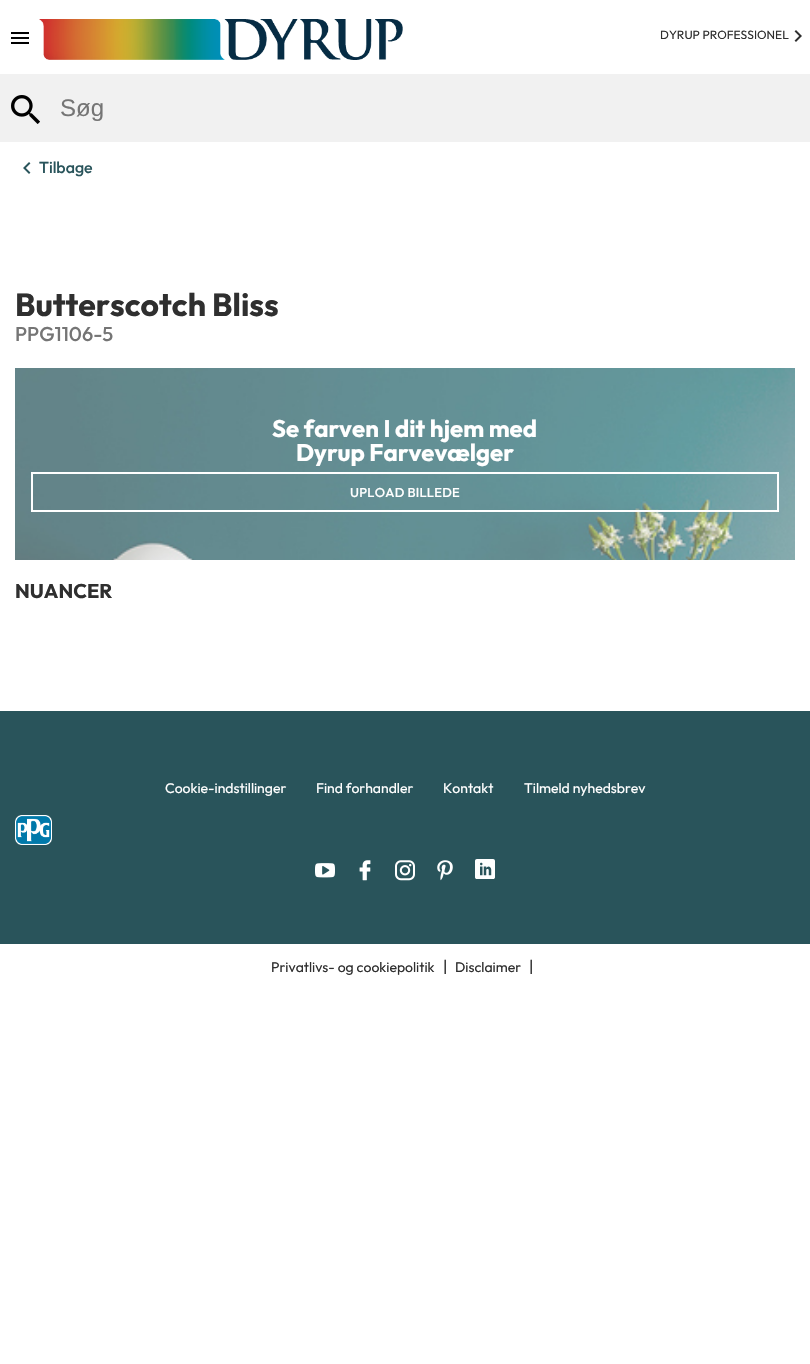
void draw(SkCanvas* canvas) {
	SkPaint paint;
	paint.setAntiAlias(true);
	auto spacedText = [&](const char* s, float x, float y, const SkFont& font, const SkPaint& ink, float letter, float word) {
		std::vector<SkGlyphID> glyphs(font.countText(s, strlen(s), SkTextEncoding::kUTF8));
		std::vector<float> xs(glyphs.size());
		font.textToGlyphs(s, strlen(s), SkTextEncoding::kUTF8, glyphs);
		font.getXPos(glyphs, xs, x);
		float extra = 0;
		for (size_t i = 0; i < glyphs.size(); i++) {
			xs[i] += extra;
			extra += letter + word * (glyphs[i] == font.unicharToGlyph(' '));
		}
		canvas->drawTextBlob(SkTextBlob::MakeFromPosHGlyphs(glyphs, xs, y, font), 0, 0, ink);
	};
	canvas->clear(0xffffffff);
	canvas->drawImageRect(SkImages::DeferredFromEncodedData(SkData::MakeFromFileName("img1.png")), SkRect::MakeXYWH(11, 32, 18, 12), SkSamplingOptions());
	canvas->drawImageRect(SkImages::DeferredFromEncodedData(SkData::MakeFromFileName("img2.png")), SkRect::MakeXYWH(39, 19, 364, 41), SkSamplingOptions());
	SkFont f1(fontMgr->matchFamilyStyle("Outfit", SkFontStyle::Normal()), 12);
	f1.setSubpixel(true);
	paint.setColor(0xff2f2f2f);
	canvas->drawString("DYRUP PROFESSIONEL", 660, 39, f1, paint);
	canvas->drawImageRect(SkImages::DeferredFromEncodedData(SkData::MakeFromFileName("img3.png")), SkRect::MakeXYWH(794, 30, 8, 12), SkSamplingOptions());
	paint.setColor(0xfff1f1f1);
	canvas->drawRect(SkRect::MakeXYWH(0, 74, 810, 68), paint);
	canvas->drawImageRect(SkImages::DeferredFromEncodedData(SkData::MakeFromFileName("img4.png")), SkRect::MakeXYWH(11, 95, 29, 29), SkSamplingOptions());
	SkFont f2(fontMgr->matchFamilyStyle("Liberation Sans", SkFontStyle::Normal()), 24);
	f2.setSubpixel(true);
	paint.setColor(0xff757575);
	canvas->drawString("Søg", 60, 116, f2, paint);
	canvas->drawImageRect(SkImages::DeferredFromEncodedData(SkData::MakeFromFileName("img5.png")), SkRect::MakeXYWH(23, 162, 8, 12), SkSamplingOptions());
	SkFont f3(fontMgr->matchFamilyStyle("Outfit", SkFontStyle(500, SkFontStyle::kNormal_Width, SkFontStyle::kUpright_Slant)), 16);
	f3.setSubpixel(true);
	paint.setColor(0xff29545b);
	canvas->drawString("Tilbage", 39, 173, f3, paint);
	SkFont f4(fontMgr->matchFamilyStyle("Outfit", SkFontStyle::Bold()), 32);
	f4.setSubpixel(true);
	paint.setColor(0xff2f2f2f);
	canvas->drawString("Butterscotch Bliss", 15, 316, f4, paint);
	SkFont f5(fontMgr->matchFamilyStyle("Outfit", SkFontStyle(500, SkFontStyle::kNormal_Width, SkFontStyle::kUpright_Slant)), 20);
	f5.setSubpixel(true);
	paint.setColor(0xff757575);
	canvas->drawString("PPG1106-5", 15, 341, f5, paint);
	canvas->drawImageRect(SkImages::DeferredFromEncodedData(SkData::MakeFromFileName("img6.png")), SkRect::MakeXYWH(15, 368, 780, 192), SkSamplingOptions());
	SkFont f6(fontMgr->matchFamilyStyle("Outfit", SkFontStyle::Bold()), 24);
	f6.setSubpixel(true);
	paint.setColor(0xffffffff);
	canvas->drawString("Se farven I dit hjem med", 272, 437, f6, paint);
	canvas->drawString("Dyrup Farvevælger", 296, 461, f6, paint);
	paint.setStroke(true);
	paint.setStrokeWidth(2);
	canvas->drawRect(SkRect::MakeXYWH(32, 473, 746, 38), paint);
	SkFont f7(fontMgr->matchFamilyStyle("Outfit", SkFontStyle(500, SkFontStyle::kNormal_Width, SkFontStyle::kUpright_Slant)), 13);
	f7.setSubpixel(true);
	paint.setStroke(false);
	spacedText("UPLOAD BILLEDE", 350, 497, f7, paint, 0.25, 0);
	SkFont f8(fontMgr->matchFamilyStyle("Outfit", SkFontStyle::Bold()), 20);
	f8.setSubpixel(true);
	paint.setColor(0xff2f2f2f);
	canvas->drawString("NUANCER", 15, 598, f8, paint);
	paint.setColor(0xff29545b);
	canvas->drawRect(SkRect::MakeXYWH(0, 711, 810, 233), paint);
	SkFont f9(fontMgr->matchFamilyStyle("Outfit", SkFontStyle::Normal()), 14);
	f9.setSubpixel(true);
	paint.setColor(0xffffffff);
	canvas->drawString("Cookie-indstillinger", 165, 793, f9, paint);
	canvas->drawString("Find forhandler", 316, 793, f9, paint);
	canvas->drawString("Kontakt", 443, 793, f9, paint);
	canvas->drawString("Tilmeld nyhedsbrev", 524, 793, f9, paint);
	canvas->drawImageRect(SkImages::DeferredFromEncodedData(SkData::MakeFromFileName("img7.png")), SkRect::MakeXYWH(315, 863, 20, 15), SkSamplingOptions());
	canvas->drawImageRect(SkImages::DeferredFromEncodedData(SkData::MakeFromFileName("img8.png")), SkRect::MakeXYWH(359, 860, 12, 21), SkSamplingOptions());
	canvas->drawImageRect(SkImages::DeferredFromEncodedData(SkData::MakeFromFileName("img9.png")), SkRect::MakeXYWH(395, 860, 20, 21), SkSamplingOptions());
	canvas->drawImageRect(SkImages::DeferredFromEncodedData(SkData::MakeFromFileName("img10.png")), SkRect::MakeXYWH(437, 860, 16, 21), SkSamplingOptions());
	canvas->drawImageRect(SkImages::DeferredFromEncodedData(SkData::MakeFromFileName("img11.png")), SkRect::MakeXYWH(475, 859, 20, 20), SkSamplingOptions());
	canvas->drawImageRect(SkImages::DeferredFromEncodedData(SkData::MakeFromFileName("img12.png")), SkRect::MakeXYWH(15, 815, 37, 30), SkSamplingOptions());
	paint.setColor(0xff2f2f2f);
	canvas->drawString("Privatlivs- og cookiepolitik", 271, 972, f9, paint);
	SkFont f10(fontMgr->matchFamilyStyle("Outfit", SkFontStyle::Normal()), 16);
	f10.setSubpixel(true);
	canvas->drawString("|", 443, 972, f10, paint);
	canvas->drawString("Disclaimer", 455, 972, f9, paint);
	canvas->drawString("|", 529, 972, f10, paint);
}
